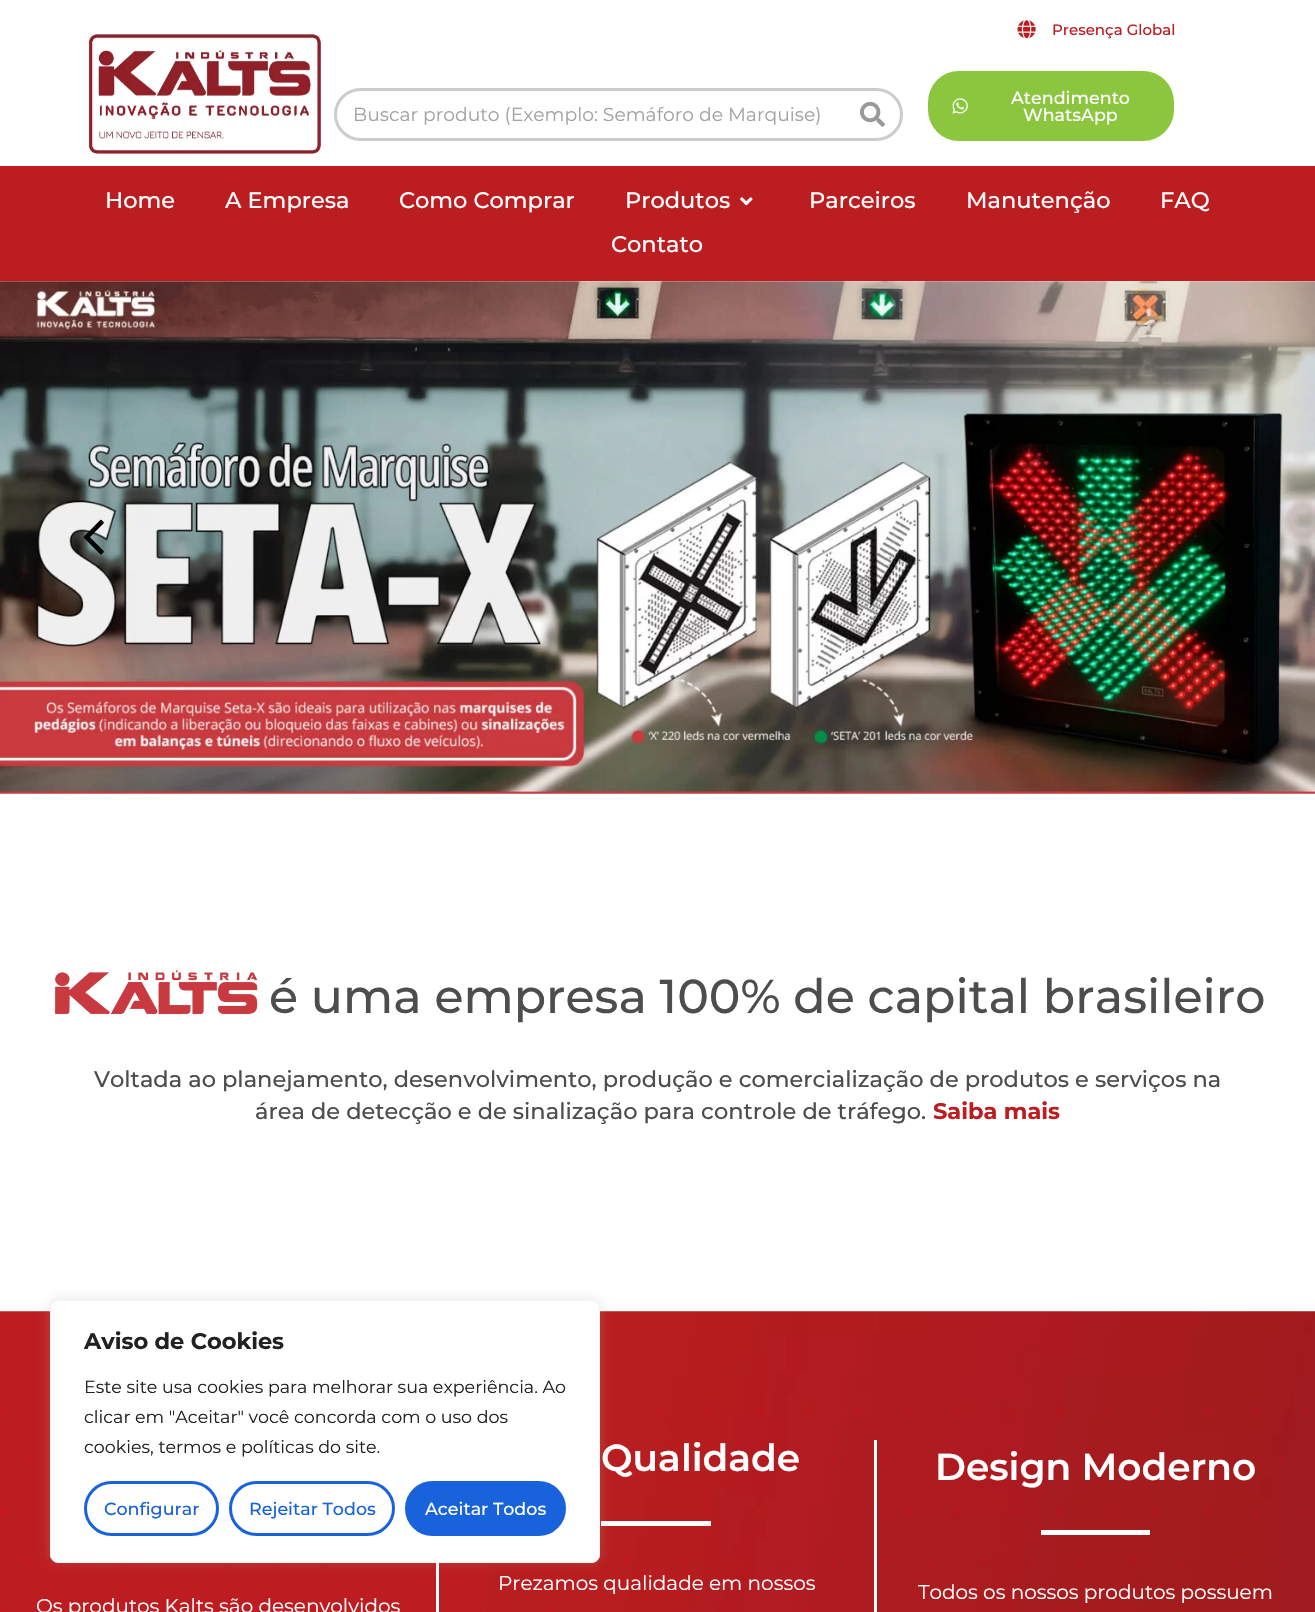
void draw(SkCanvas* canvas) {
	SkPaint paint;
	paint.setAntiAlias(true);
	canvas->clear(0xffffffff);
	canvas->drawImageRect(SkImages::DeferredFromEncodedData(SkData::MakeFromFileName("img1.png")), SkRect::MakeXYWH(87, 32, 235, 122), SkSamplingOptions());
	canvas->drawImageRect(SkImages::DeferredFromEncodedData(SkData::MakeFromFileName("img2.png")), SkRect::MakeXYWH(1017, 20, 19, 19), SkSamplingOptions());
	SkFont f1(fontMgr->matchFamilyStyle("Montserrat", SkFontStyle(500, SkFontStyle::kNormal_Width, SkFontStyle::kUpright_Slant)), 15);
	f1.setSubpixel(true);
	paint.setColor(0xffbc1d21);
	canvas->drawString("Presença Global", 1052, 35, f1, paint);
	paint.setStroke(true);
	paint.setStrokeWidth(3);
	paint.setColor(0xffcccccc);
	canvas->drawRoundRect(SkRect::MakeXYWH(335.5, 89.5, 566, 50), 25, 25, paint);
	SkFont f2(fontMgr->matchFamilyStyle("Montserrat", SkFontStyle::Normal()), 18.75);
	f2.setSubpixel(true);
	paint.setStroke(false);
	paint.setColor(0xffa3a3a3);
	canvas->drawString("Buscar produto (Exemplo: Semáforo de Marquise)", 353, 121, f2, paint);
	canvas->drawImageRect(SkImages::DeferredFromEncodedData(SkData::MakeFromFileName("img3.png")), SkRect::MakeXYWH(860, 101, 25, 26), SkSamplingOptions());
	paint.setColor(0xff8cc63f);
	canvas->drawRoundRect(SkRect::MakeXYWH(928, 71, 246, 70), 31, 31, paint);
	canvas->drawImageRect(SkImages::DeferredFromEncodedData(SkData::MakeFromFileName("img4.png")), SkRect::MakeXYWH(952, 98, 16, 16), SkSamplingOptions());
	SkFont f3(fontMgr->matchFamilyStyle("Montserrat", SkFontStyle(500, SkFontStyle::kNormal_Width, SkFontStyle::kUpright_Slant)), 17.5);
	f3.setSubpixel(true);
	paint.setColor(0xffffffff);
	canvas->drawString("Atendimento", 1011, 104, f3, paint);
	canvas->drawString("WhatsApp", 1023, 121, f3, paint);
	paint.setColor(0xffbc1d21);
	canvas->drawRect(SkRect::MakeXYWH(0, 166, 1315, 115), paint);
	SkFont f4(fontMgr->matchFamilyStyle("Montserrat", SkFontStyle(500, SkFontStyle::kNormal_Width, SkFontStyle::kUpright_Slant)), 22.5);
	f4.setSubpixel(true);
	paint.setColor(0xffffffff);
	canvas->drawString("Home", 105, 208, f4, paint);
	canvas->drawString("A Empresa", 225, 208, f4, paint);
	canvas->drawString("Como Comprar", 399, 208, f4, paint);
	canvas->drawString("Produtos", 625, 208, f4, paint);
	canvas->drawImageRect(SkImages::DeferredFromEncodedData(SkData::MakeFromFileName("img5.png")), SkRect::MakeXYWH(740, 197, 13, 9), SkSamplingOptions());
	canvas->drawString("Parceiros", 809, 208, f4, paint);
	canvas->drawString("Manutenção", 966, 208, f4, paint);
	canvas->drawString("FAQ", 1160, 208, f4, paint);
	canvas->drawString("Contato", 611, 252, f4, paint);
	canvas->drawImageRect(SkImages::DeferredFromEncodedData(SkData::MakeFromFileName("img6.png")), SkRect::MakeXYWH(0, 281, 1315, 513), SkSamplingOptions());
	canvas->drawImageRect(SkImages::DeferredFromEncodedData(SkData::MakeFromFileName("img7.png")), SkRect::MakeXYWH(83, 519, 21, 36), SkSamplingOptions());
	canvas->drawImageRect(SkImages::DeferredFromEncodedData(SkData::MakeFromFileName("img8.png")), SkRect::MakeXYWH(1211, 520, 14, 35), SkSamplingOptions());
	canvas->drawImageRect(SkImages::DeferredFromEncodedData(SkData::MakeFromFileName("img9.png")), SkRect::MakeXYWH(55, 970, 203, 45), SkSamplingOptions());
	SkFont f5(fontMgr->matchFamilyStyle("Montserrat", SkFontStyle(500, SkFontStyle::kNormal_Width, SkFontStyle::kUpright_Slant)), 47.5);
	f5.setSubpixel(true);
	paint.setColor(0xff4d4d4d);
	canvas->drawString("é uma empresa 100% de capital brasileiro", 269, 1013, f5, paint);
	canvas->drawString("Voltada ao planejamento, desenvolvimento, produção e comercialização de produtos e serviços na", 94, 1087, f4, paint);
	canvas->drawString("área de detecção e de sinalização para controle de tráfego.", 255, 1119, f4, paint);
	SkFont f6(fontMgr->matchFamilyStyle("Montserrat", SkFontStyle::Bold()), 22.5);
	f6.setSubpixel(true);
	paint.setColor(0xffbc1d21);
	canvas->drawString("Saiba mais", 933, 1119, f6, paint);
	canvas->drawImageRect(SkImages::DeferredFromEncodedData(SkData::MakeFromFileName("img10.png")), SkRect::MakeXYWH(0, 1311, 1315, 301), SkSamplingOptions());
	paint.setColor(0xffffffff);
	canvas->drawRect(SkRect::MakeXYWH(874, 1440, 3, 172), paint);
	SkFont f7(fontMgr->matchFamilyStyle("Montserrat", SkFontStyle(600, SkFontStyle::kNormal_Width, SkFontStyle::kUpright_Slant)), 37.5);
	f7.setSubpixel(true);
	canvas->drawString("Qualidade", 601, 1471, f7, paint);
	canvas->drawRect(SkRect::MakeXYWH(601, 1521, 110, 5), paint);
	SkFont f8(fontMgr->matchFamilyStyle("Montserrat", SkFontStyle::Normal()), 20);
	f8.setSubpixel(true);
	canvas->drawString("Prezamos qualidade em nossos", 498, 1590, f8, paint);
	canvas->drawString("Design Moderno", 935, 1480, f7, paint);
	canvas->drawRect(SkRect::MakeXYWH(1041, 1530, 109, 5), paint);
	canvas->drawString("Todos os nossos produtos possuem", 918, 1599, f8, paint);
	canvas->drawRect(SkRect::MakeXYWH(436, 1563, 3, 49), paint);
	canvas->drawString("Os produtos Kalts são desenvolvidos", 36, 1613, f8, paint);
	paint.setColor(0x4dacabab);
	paint.setMaskFilter(SkMaskFilter::MakeBlur(kNormal_SkBlurStyle, 6));
	canvas->drawRoundRect(SkRect::MakeXYWH(50, 1299, 550, 262), 8, 8, paint);
	paint.setMaskFilter(nullptr);
	paint.setColor(0xffffffff);
	canvas->drawRoundRect(SkRect::MakeXYWH(50.5, 1300.5, 549, 262), 7.5, 7.5, paint);
	paint.setStroke(true);
	paint.setStrokeWidth(1);
	paint.setColor(0xfff4f4f4);
	canvas->drawRoundRect(SkRect::MakeXYWH(50.5, 1300.5, 549, 262), 7.5, 7.5, paint);
	paint.setStroke(false);
	paint.setColor(0xff212121);
	canvas->drawString("Aviso de Cookies", 84, 1349, f6, paint);
	SkFont f9(fontMgr->matchFamilyStyle("Montserrat", SkFontStyle::Normal()), 17.5);
	f9.setSubpixel(true);
	canvas->drawString("Este site usa cookies para melhorar sua experiência. Ao", 84, 1393, f9, paint);
	canvas->drawString("clicar em \"Aceitar\" você concorda com o uso dos", 84, 1423, f9, paint);
	canvas->drawString("cookies, termos e políticas do site.", 84, 1453, f9, paint);
	paint.setStroke(true);
	paint.setStrokeWidth(3);
	paint.setColor(0xff1863dc);
	canvas->drawRoundRect(SkRect::MakeXYWH(85.5, 1482.5, 132, 52), 26, 26, paint);
	paint.setStroke(false);
	canvas->drawString("Configurar", 104, 1515, f3, paint);
	paint.setStroke(true);
	canvas->drawRoundRect(SkRect::MakeXYWH(230.5, 1482.5, 163, 52), 26, 26, paint);
	paint.setStroke(false);
	canvas->drawString("Rejeitar Todos", 249, 1515, f3, paint);
	canvas->drawRoundRect(SkRect::MakeXYWH(406.5, 1482.5, 158, 52), 26, 26, paint);
	paint.setStroke(true);
	canvas->drawRoundRect(SkRect::MakeXYWH(406.5, 1482.5, 158, 52), 26, 26, paint);
	paint.setStroke(false);
	paint.setColor(0xffffffff);
	canvas->drawString("Aceitar Todos", 425, 1515, f3, paint);
}
